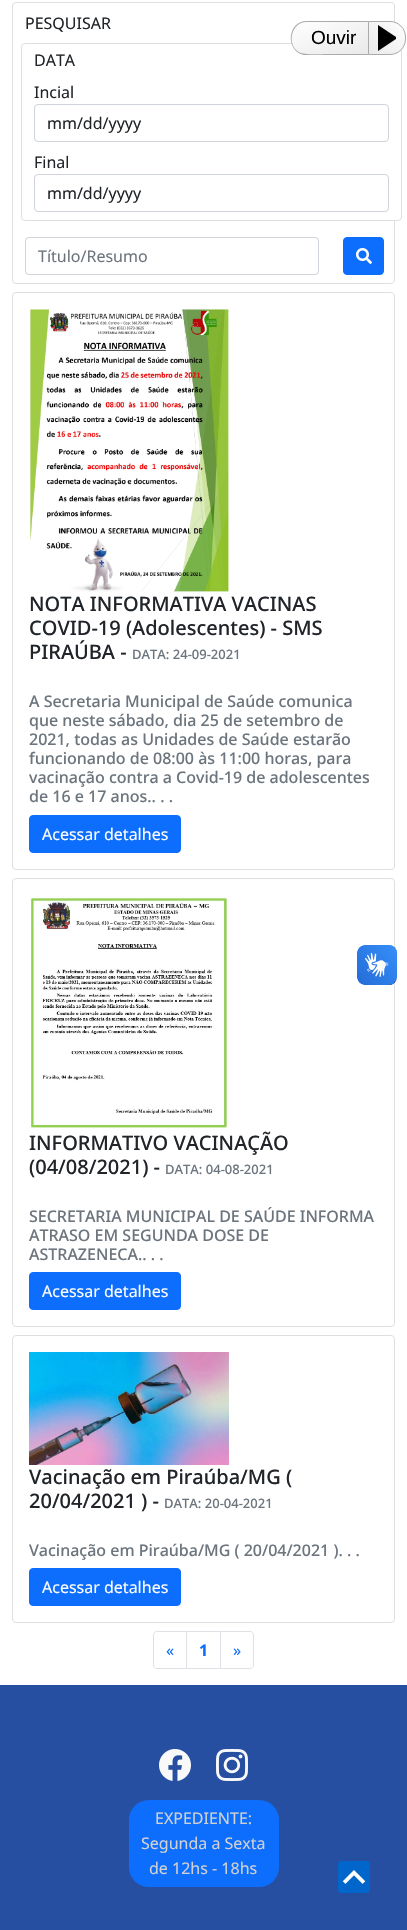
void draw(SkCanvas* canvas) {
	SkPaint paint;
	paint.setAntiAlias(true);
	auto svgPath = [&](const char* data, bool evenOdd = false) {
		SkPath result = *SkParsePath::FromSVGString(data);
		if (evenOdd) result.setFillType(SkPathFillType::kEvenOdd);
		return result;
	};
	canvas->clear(0xffffffff);
	paint.setStroke(true);
	paint.setStrokeWidth(1);
	paint.setColor(0xffdfdfdf);
	canvas->drawRoundRect(SkRect::MakeXYWH(12.5, 2.5, 382, 281), 3.5, 3.5, paint);
	SkFont f1(fontMgr->matchFamilyStyle("Noto Sans", SkFontStyle::Normal()), 16);
	f1.setSubpixel(true);
	paint.setStroke(false);
	paint.setColor(0xff212529);
	canvas->drawString("PESQUISAR", 25, 29, f1, paint);
	paint.setColor(0xffffffff);
	canvas->drawRoundRect(SkRect::MakeXYWH(21.5, 43.5, 380, 177), 3.5, 3.5, paint);
	paint.setStroke(true);
	paint.setColor(0xffdfdfdf);
	canvas->drawRoundRect(SkRect::MakeXYWH(21.5, 43.5, 380, 177), 3.5, 3.5, paint);
	paint.setStroke(false);
	paint.setColor(0xff212529);
	canvas->drawString("DATA", 34, 66, f1, paint);
	canvas->drawString("Incial", 34, 98, f1, paint);
	paint.setStroke(true);
	paint.setColor(0xffced4da);
	canvas->drawRoundRect(SkRect::MakeXYWH(34.5, 104.5, 354, 37), 3.5, 3.5, paint);
	paint.setStroke(false);
	paint.setColor(0xff212529);
	canvas->drawString("mm/dd/yyyy", 47, 129, f1, paint);
	canvas->drawString("Final", 34, 168, f1, paint);
	paint.setStroke(true);
	paint.setColor(0xffced4da);
	canvas->drawRoundRect(SkRect::MakeXYWH(34.5, 174.5, 354, 37), 3.5, 3.5, paint);
	paint.setStroke(false);
	paint.setColor(0xff212529);
	canvas->drawString("mm/dd/yyyy", 47, 199, f1, paint);
	paint.setStroke(true);
	paint.setColor(0xffced4da);
	canvas->drawRoundRect(SkRect::MakeXYWH(25.5, 237.5, 293, 37), 3.5, 3.5, paint);
	paint.setStroke(false);
	paint.setColor(0xff6c757d);
	canvas->drawString("Título/Resumo", 38, 262, f1, paint);
	paint.setColor(0xff0d6efd);
	canvas->drawRoundRect(SkRect::MakeXYWH(343.5, 237.5, 40, 37), 3.5, 3.5, paint);
	paint.setStroke(true);
	canvas->drawRoundRect(SkRect::MakeXYWH(343.5, 237.5, 40, 37), 3.5, 3.5, paint);
	canvas->drawImageRect(SkImages::DeferredFromEncodedData(SkData::MakeFromFileName("img1.png")), SkRect::MakeXYWH(356, 248, 16, 16), SkSamplingOptions());
	paint.setColor(0xffdfdfdf);
	canvas->drawRoundRect(SkRect::MakeXYWH(12.5, 292.5, 382, 577), 3.5, 3.5, paint);
	canvas->drawImageRect(SkImages::DeferredFromEncodedData(SkData::MakeFromFileName("img2.png")), SkRect::MakeXYWH(30, 309, 199, 283), SkSamplingOptions());
	SkFont f2(fontMgr->matchFamilyStyle("Noto Sans", SkFontStyle(500, SkFontStyle::kNormal_Width, SkFontStyle::kUpright_Slant)), 20);
	f2.setSubpixel(true);
	paint.setStroke(false);
	paint.setColor(0xff212529);
	canvas->drawString("NOTA INFORMATIVA VACINAS", 29, 611, f2, paint);
	canvas->drawString("COVID-19 (Adolescentes) - SMS", 29, 635, f2, paint);
	canvas->drawString("PIRAÚBA -", 29, 659, f2, paint);
	SkFont f3(fontMgr->matchFamilyStyle("Noto Sans", SkFontStyle(500, SkFontStyle::kNormal_Width, SkFontStyle::kUpright_Slant)), 13);
	f3.setSubpixel(true);
	paint.setColor(0xff6c757d);
	canvas->drawString("DATA: 24-09-2021", 132, 659, f3, paint);
	SkFont f4(fontMgr->matchFamilyStyle("Noto Sans", SkFontStyle(500, SkFontStyle::kNormal_Width, SkFontStyle::kUpright_Slant)), 16);
	f4.setSubpixel(true);
	canvas->drawString("A Secretaria Municipal de Saúde comunica", 29, 707, f4, paint);
	canvas->drawString("que neste sábado, dia 25 de setembro de", 29, 726, f4, paint);
	canvas->drawString("2021, todas as Unidades de Saúde estarão", 29, 745, f4, paint);
	canvas->drawString("funcionando de 08:00 às 11:00 horas, para", 29, 764, f4, paint);
	canvas->drawString("vacinação contra a Covid-19 de adolescentes", 29, 783, f4, paint);
	canvas->drawString("de 16 e 17 anos.. . .", 29, 802, f4, paint);
	paint.setColor(0xff0d6efd);
	canvas->drawRoundRect(SkRect::MakeXYWH(29.5, 815.5, 151, 37), 3.5, 3.5, paint);
	paint.setStroke(true);
	canvas->drawRoundRect(SkRect::MakeXYWH(29.5, 815.5, 151, 37), 3.5, 3.5, paint);
	paint.setStroke(false);
	paint.setColor(0xffffffff);
	canvas->drawString("Acessar detalhes", 42, 840, f1, paint);
	paint.setStroke(true);
	paint.setColor(0xffdfdfdf);
	canvas->drawRoundRect(SkRect::MakeXYWH(12.5, 878.5, 382, 448), 3.5, 3.5, paint);
	canvas->drawImageRect(SkImages::DeferredFromEncodedData(SkData::MakeFromFileName("img3.png")), SkRect::MakeXYWH(30, 896, 197, 232), SkSamplingOptions());
	paint.setStroke(false);
	paint.setColor(0xff212529);
	canvas->drawString("INFORMATIVO VACINAÇÃO", 29, 1150, f2, paint);
	canvas->drawString("(04/08/2021) -", 29, 1174, f2, paint);
	paint.setColor(0xff6c757d);
	canvas->drawString("DATA: 04-08-2021", 165, 1174, f3, paint);
	canvas->drawString("SECRETARIA MUNICIPAL DE SAÚDE INFORMA", 29, 1222, f4, paint);
	canvas->drawString("ATRASO EM SEGUNDA DOSE DE", 29, 1241, f4, paint);
	canvas->drawString("ASTRAZENECA.. . .", 29, 1260, f4, paint);
	paint.setColor(0xff0d6efd);
	canvas->drawRoundRect(SkRect::MakeXYWH(29.5, 1272.5, 151, 37), 3.5, 3.5, paint);
	paint.setStroke(true);
	canvas->drawRoundRect(SkRect::MakeXYWH(29.5, 1272.5, 151, 37), 3.5, 3.5, paint);
	paint.setStroke(false);
	paint.setColor(0xffffffff);
	canvas->drawString("Acessar detalhes", 42, 1297, f1, paint);
	paint.setStroke(true);
	paint.setColor(0xffdfdfdf);
	canvas->drawRoundRect(SkRect::MakeXYWH(12.5, 1335.5, 382, 287), 3.5, 3.5, paint);
	canvas->drawImageRect(SkImages::DeferredFromEncodedData(SkData::MakeFromFileName("img4.png")), SkRect::MakeXYWH(29, 1352, 200, 113), SkSamplingOptions());
	paint.setStroke(false);
	paint.setColor(0xff212529);
	canvas->drawString("Vacinação em Piraúba/MG (", 29, 1484, f2, paint);
	canvas->drawString("20/04/2021 ) -", 29, 1508, f2, paint);
	paint.setColor(0xff6c757d);
	canvas->drawString("DATA: 20-04-2021", 164, 1508, f3, paint);
	canvas->drawString("Vacinação em Piraúba/MG ( 20/04/2021 ). . .", 29, 1556, f4, paint);
	paint.setColor(0xff0d6efd);
	canvas->drawRoundRect(SkRect::MakeXYWH(29.5, 1568.5, 151, 37), 3.5, 3.5, paint);
	paint.setStroke(true);
	canvas->drawRoundRect(SkRect::MakeXYWH(29.5, 1568.5, 151, 37), 3.5, 3.5, paint);
	paint.setStroke(false);
	paint.setColor(0xffffffff);
	canvas->drawString("Acessar detalhes", 42, 1593, f1, paint);
	paint.setStroke(true);
	paint.setColor(0xffdee2e6);
	canvas->drawPath(svgPath("M157 1631.5H186.5V1668.5H157C155 1668.5 153.5 1667 153.5 1665V1635C153.5 1633 155 1631.5 157 1631.5Z"), paint);
	paint.setStroke(false);
	paint.setColor(0xff0d6efd);
	canvas->drawString("«", 166, 1656, f1, paint);
	paint.setStroke(true);
	paint.setColor(0xffdee2e6);
	canvas->drawRect(SkRect::MakeXYWH(186.5, 1631.5, 34, 37), paint);
	SkFont f5(fontMgr->matchFamilyStyle("Noto Sans", SkFontStyle::Bold()), 16);
	f5.setSubpixel(true);
	paint.setStroke(false);
	paint.setColor(0xff0d6efd);
	canvas->drawString("1", 199, 1656, f5, paint);
	paint.setColor(0xffffffff);
	canvas->drawPath(svgPath("M220.5 1631.5H250C252 1631.5 253.5 1633 253.5 1635V1665C253.5 1667 252 1668.5 250 1668.5H220.5Z"), paint);
	paint.setStroke(true);
	paint.setColor(0xffdee2e6);
	canvas->drawPath(svgPath("M220.5 1631.5H250C252 1631.5 253.5 1633 253.5 1635V1665C253.5 1667 252 1668.5 250 1668.5H220.5Z"), paint);
	paint.setStroke(false);
	paint.setColor(0xff0d6efd);
	canvas->drawString("»", 233, 1656, f1, paint);
	{
		const SkColor colors[] = {0xffe9e9e9, 0xffffffff};
		const float stops[] = {0, 1};
		const SkPoint ends[] = {{341, 65}, {319, 11}};
		paint.setShader(SkGradientShader::MakeLinear(ends, colors, stops, 2, SkTileMode::kClamp));
		paint.setAlpha(255);
	}
	canvas->drawPath(svgPath("M307 22H368V54H307C298.5 54 292 47.5 292 39V37C292 28.5 298.5 22 307 22Z"), paint);
	paint.setShader(nullptr);
	paint.setColor(0xffaaaaaa);
	canvas->drawPath(svgPath("M307 21H368V55H304C285 51 287 21 307 21ZM307 22H368V54H327C321 54 307 55 301 53C286 47 290 22 307 22Z", true), paint);
	SkFont f6(fontMgr->matchFamilyStyle("Liberation Sans", SkFontStyle::Normal()), 19);
	f6.setSubpixel(true);
	paint.setColor(0xff000000);
	canvas->drawString("Ouvir", 311, 44, f6, paint);
	canvas->save();
	canvas->clipPath(svgPath("M368 21H390C399 21 406 28 406 37V39C406 48 399 55 390 55H368Z"), true);
	{
		const SkColor colors[] = {0xffe9e9e9, 0xffffffff};
		const float stops[] = {0, 1};
		const SkPoint ends[] = {{371, 56}, {403, 20}};
		paint.setShader(SkGradientShader::MakeLinear(ends, colors, stops, 2, SkTileMode::kClamp));
		paint.setAlpha(255);
	}
	canvas->drawRect(SkRect::MakeXYWH(369, 22, 36, 32), paint);
	canvas->restore();
	paint.setStroke(true);
	paint.setShader(nullptr);
	paint.setColor(0xffaaaaaa);
	canvas->drawPath(svgPath("M368.5 21.5H390C398.5 21.5 405.5 28.5 405.5 37V39C405.5 47.5 398.5 54.5 390 54.5H368.5Z"), paint);
	paint.setStroke(false);
	paint.setColor(0xff000000);
	canvas->drawPath(svgPath("M378 51V25L396 37V39Z"), paint);
	canvas->drawImageRect(SkImages::DeferredFromEncodedData(SkData::MakeFromFileName("img5.png")), SkRect::MakeXYWH(357, 945, 40, 40), SkSamplingOptions());
	canvas->drawImageRect(SkImages::DeferredFromEncodedData(SkData::MakeFromFileName("img6.png")), SkRect::MakeXYWH(357, 945, 40, 40), SkSamplingOptions());
	paint.setColor(0xff264fa2);
	canvas->drawRect(SkRect::MakeXYWH(0, 1685, 407, 245), paint);
	canvas->drawImageRect(SkImages::DeferredFromEncodedData(SkData::MakeFromFileName("img7.png")), SkRect::MakeXYWH(159, 1749, 32, 32), SkSamplingOptions());
	canvas->drawImageRect(SkImages::DeferredFromEncodedData(SkData::MakeFromFileName("img8.png")), SkRect::MakeXYWH(216, 1749, 32, 32), SkSamplingOptions());
	paint.setColor(0xff0d6efd);
	canvas->drawRoundRect(SkRect::MakeXYWH(129, 1800, 150, 87), 20, 20, paint);
	paint.setColor(0xffd2d1d1);
	canvas->drawString("EXPEDIENTE:", 155, 1824, f1, paint);
	canvas->drawString("Segunda a Sexta", 141, 1849, f1, paint);
	canvas->drawString("de 12hs - 18hs", 149, 1874, f1, paint);
	canvas->drawImageRect(SkImages::DeferredFromEncodedData(SkData::MakeFromFileName("img9.png")), SkRect::MakeXYWH(338, 1861, 32, 32), SkSamplingOptions());
}
